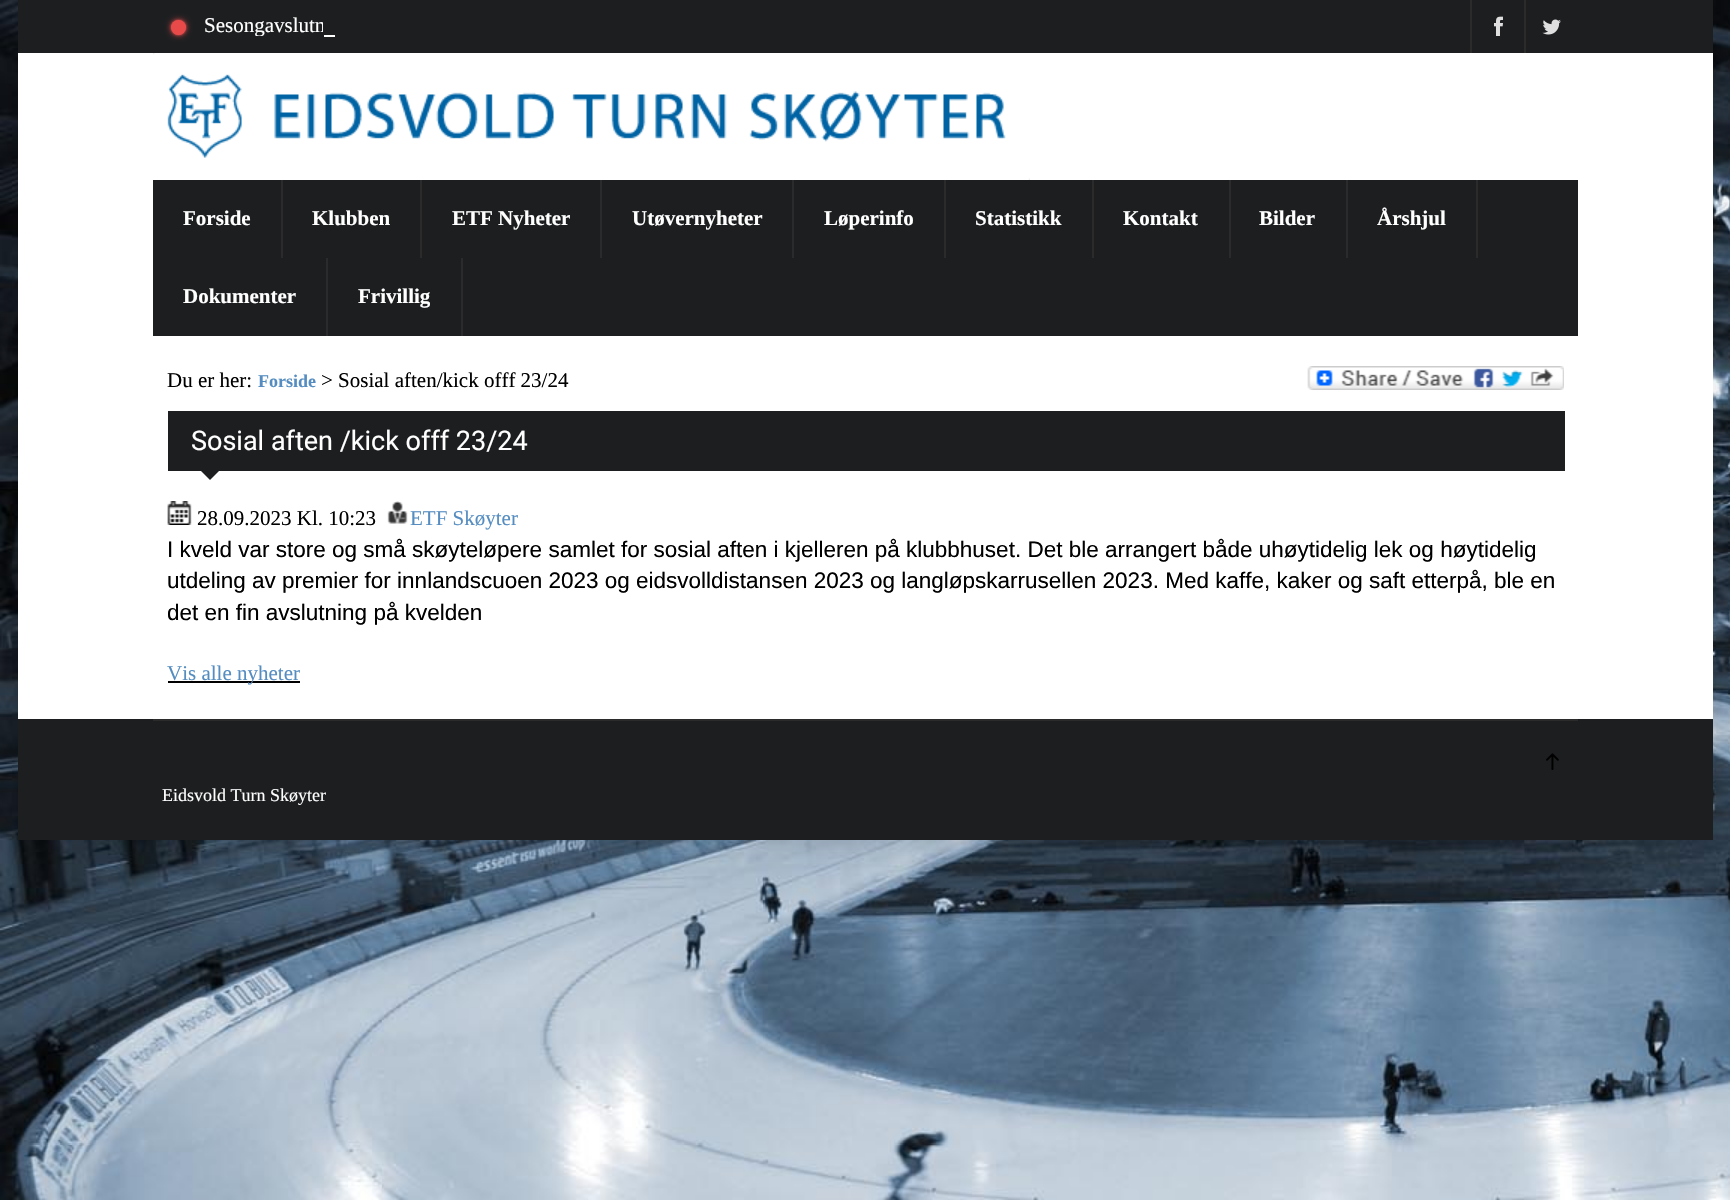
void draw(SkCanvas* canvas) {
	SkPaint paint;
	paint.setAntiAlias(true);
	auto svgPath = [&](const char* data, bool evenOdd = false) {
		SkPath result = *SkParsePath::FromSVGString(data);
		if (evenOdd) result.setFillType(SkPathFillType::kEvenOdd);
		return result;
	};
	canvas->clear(0xffffffff);
	canvas->drawImageRect(SkImages::DeferredFromEncodedData(SkData::MakeFromFileName("img1.png")), SkRect::MakeXYWH(0, 0, 1730, 1200), SkSamplingOptions());
	paint.setColor(0x1a000000);
	paint.setMaskFilter(SkMaskFilter::MakeBlur(kNormal_SkBlurStyle, 15));
	canvas->drawRect(SkRect::MakeXYWH(18, 0, 1695, 840), paint);
	paint.setMaskFilter(nullptr);
	paint.setColor(0xffffffff);
	canvas->drawRect(SkRect::MakeXYWH(18, 53, 1695, 666), paint);
	paint.setColor(0xff1d1e20);
	canvas->drawRect(SkRect::MakeXYWH(18, 0, 1695, 53), paint);
	paint.setColor(0xffe84a4a);
	paint.setMaskFilter(SkMaskFilter::MakeBlur(kNormal_SkBlurStyle, 1));
	canvas->drawRoundRect(SkRect::MakeXYWH(171, 20, 15, 15), 7.5, 7.5, paint);
	paint.setMaskFilter(nullptr);
	paint.setMaskFilter(SkMaskFilter::MakeBlur(kNormal_SkBlurStyle, 3));
	canvas->drawRoundRect(SkRect::MakeXYWH(171, 20, 15, 15), 7.5, 7.5, paint);
	paint.setMaskFilter(nullptr);
	canvas->drawCircle(178.5, 27.5, 7.5, paint);
	canvas->save();
	canvas->clipRect(SkRect::MakeXYWH(204, 3, 315, 33));
	SkFont f1(fontMgr->matchFamilyStyle("Liberation Serif", SkFontStyle::Normal()), 21);
	f1.setSubpixel(true);
	paint.setColor(0xffffffff);
	canvas->drawString("Sesongavslutn", 204, 32, f1, paint);
	canvas->restore();
	paint.setColor(0xff1d1e20);
	canvas->drawRect(SkRect::MakeXYWH(323, 22, 2, 10), paint);
	paint.setColor(0xffffffff);
	canvas->drawRect(SkRect::MakeXYWH(324, 35, 11, 2), paint);
	paint.setColor(0xff2b2b2b);
	canvas->drawRect(SkRect::MakeXYWH(1470, 0, 2, 53), paint);
	canvas->drawImageRect(SkImages::DeferredFromEncodedData(SkData::MakeFromFileName("img2.png")), SkRect::MakeXYWH(1494, 16, 9, 20), SkSamplingOptions());
	canvas->drawRect(SkRect::MakeXYWH(1524, 0, 2, 53), paint);
	canvas->drawImageRect(SkImages::DeferredFromEncodedData(SkData::MakeFromFileName("img3.png")), SkRect::MakeXYWH(1542, 19, 19, 16), SkSamplingOptions());
	canvas->drawImageRect(SkImages::DeferredFromEncodedData(SkData::MakeFromFileName("img4.png")), SkRect::MakeXYWH(153, 53, 877, 127), SkSamplingOptions());
	paint.setColor(0xff1d1e20);
	canvas->drawRect(SkRect::MakeXYWH(153, 180, 1425, 156), paint);
	paint.setColor(0xff2b2b2b);
	canvas->drawRect(SkRect::MakeXYWH(281, 180, 2, 78), paint);
	SkFont f2(fontMgr->matchFamilyStyle("Liberation Serif", SkFontStyle::Bold()), 21);
	f2.setSubpixel(true);
	paint.setColor(0xffffffff);
	canvas->drawString("Forside", 183, 225, f2, paint);
	paint.setColor(0xff2b2b2b);
	canvas->drawRect(SkRect::MakeXYWH(420, 180, 2, 78), paint);
	paint.setColor(0xffffffff);
	canvas->drawString("Klubben", 312, 225, f2, paint);
	paint.setColor(0xff2b2b2b);
	canvas->drawRect(SkRect::MakeXYWH(600, 180, 2, 78), paint);
	paint.setColor(0xffffffff);
	canvas->drawString("ETF Nyheter", 452, 225, f2, paint);
	paint.setColor(0xff2b2b2b);
	canvas->drawRect(SkRect::MakeXYWH(792, 180, 2, 78), paint);
	paint.setColor(0xffffffff);
	canvas->drawString("Utøvernyheter", 632, 225, f2, paint);
	paint.setColor(0xff2b2b2b);
	canvas->drawRect(SkRect::MakeXYWH(944, 180, 2, 78), paint);
	paint.setColor(0xffffffff);
	canvas->drawString("Løperinfo", 824, 225, f2, paint);
	paint.setColor(0xff2b2b2b);
	canvas->drawRect(SkRect::MakeXYWH(1092, 180, 2, 78), paint);
	paint.setColor(0xffffffff);
	canvas->drawString("Statistikk", 975, 225, f2, paint);
	paint.setColor(0xff2b2b2b);
	canvas->drawRect(SkRect::MakeXYWH(1229, 180, 2, 78), paint);
	paint.setColor(0xffffffff);
	canvas->drawString("Kontakt", 1123, 225, f2, paint);
	paint.setColor(0xff2b2b2b);
	canvas->drawRect(SkRect::MakeXYWH(1346, 180, 2, 78), paint);
	paint.setColor(0xffffffff);
	canvas->drawString("Bilder", 1259, 225, f2, paint);
	paint.setColor(0xff2b2b2b);
	canvas->drawRect(SkRect::MakeXYWH(1476, 180, 2, 78), paint);
	paint.setColor(0xffffffff);
	canvas->drawString("Årshjul", 1377, 225, f2, paint);
	paint.setColor(0xff2b2b2b);
	canvas->drawRect(SkRect::MakeXYWH(326, 258, 2, 78), paint);
	paint.setColor(0xffffffff);
	canvas->drawString("Dokumenter", 183, 303, f2, paint);
	paint.setColor(0xff2b2b2b);
	canvas->drawRect(SkRect::MakeXYWH(461, 258, 2, 78), paint);
	paint.setColor(0xffffffff);
	canvas->drawString("Frivillig", 358, 303, f2, paint);
	paint.setColor(0xff000000);
	canvas->drawString("Du er her:", 167, 387, f1, paint);
	SkFont f3(fontMgr->matchFamilyStyle("Liberation Serif", SkFontStyle::Bold()), 18);
	f3.setSubpixel(true);
	paint.setColor(0xff558dc1);
	canvas->drawString("Forside", 258, 387, f3, paint);
	paint.setColor(0xff000000);
	canvas->drawString("> Sosial aften/kick offf 23/24", 321, 387, f1, paint);
	canvas->drawImageRect(SkImages::DeferredFromEncodedData(SkData::MakeFromFileName("img5.png")), SkRect::MakeXYWH(1307, 366, 257, 24), SkSamplingOptions());
	paint.setColor(0xff1d1e20);
	canvas->drawRect(SkRect::MakeXYWH(168, 411, 1397, 60), paint);
	SkFont f4(fontMgr->matchFamilyStyle("Roboto", SkFontStyle::Normal()), 27);
	f4.setSubpixel(true);
	paint.setColor(0xffffffff);
	canvas->drawString("Sosial aften /kick offf 23/24", 191, 450, f4, paint);
	paint.setColor(0xff1d1e20);
	canvas->drawPath(svgPath("M201 471H219L210 480Z"), paint);
	canvas->drawImageRect(SkImages::DeferredFromEncodedData(SkData::MakeFromFileName("img6.png")), SkRect::MakeXYWH(167, 501, 25, 24), SkSamplingOptions());
	paint.setColor(0xff000000);
	canvas->drawString("28.09.2023 Kl. 10:23", 197, 525, f1, paint);
	canvas->drawImageRect(SkImages::DeferredFromEncodedData(SkData::MakeFromFileName("img7.png")), SkRect::MakeXYWH(387, 501, 21, 23), SkSamplingOptions());
	paint.setColor(0xff558dc1);
	canvas->drawString("ETF Skøyter", 410, 525, f1, paint);
	SkFont f5(fontMgr->matchFamilyStyle("Liberation Sans", SkFontStyle::Normal()), 22.5);
	f5.setSubpixel(true);
	paint.setColor(0xff000000);
	canvas->drawString("I kveld var store og små skøyteløpere samlet for sosial aften i kjelleren på klubbhuset. Det ble arrangert både uhøytidelig lek og høytidelig", 167, 557, f5, paint);
	canvas->drawString("utdeling av premier for innlandscuoen 2023 og eidsvolldistansen 2023 og langløpskarrusellen 2023. Med kaffe, kaker og saft etterpå, ble en", 167, 588, f5, paint);
	canvas->drawString("det en fin avslutning på kvelden", 167, 620, f5, paint);
	canvas->drawRect(SkRect::MakeXYWH(168, 681, 132, 2), paint);
	paint.setColor(0xff558dc1);
	canvas->drawString("Vis alle nyheter", 167, 680, f1, paint);
	paint.setColor(0xff1d1e20);
	canvas->drawRect(SkRect::MakeXYWH(18, 719, 1695, 121), paint);
	paint.setColor(0xff2b2b2b);
	canvas->drawRect(SkRect::MakeXYWH(153, 719, 1425, 2), paint);
	canvas->drawImageRect(SkImages::DeferredFromEncodedData(SkData::MakeFromFileName("img8.png")), SkRect::MakeXYWH(1546, 753, 13, 17), SkSamplingOptions());
	SkFont f6(fontMgr->matchFamilyStyle("Liberation Serif", SkFontStyle::Normal()), 18);
	f6.setSubpixel(true);
	paint.setColor(0xffffffff);
	canvas->drawString("Eidsvold Turn Skøyter", 162, 801, f6, paint);
}
